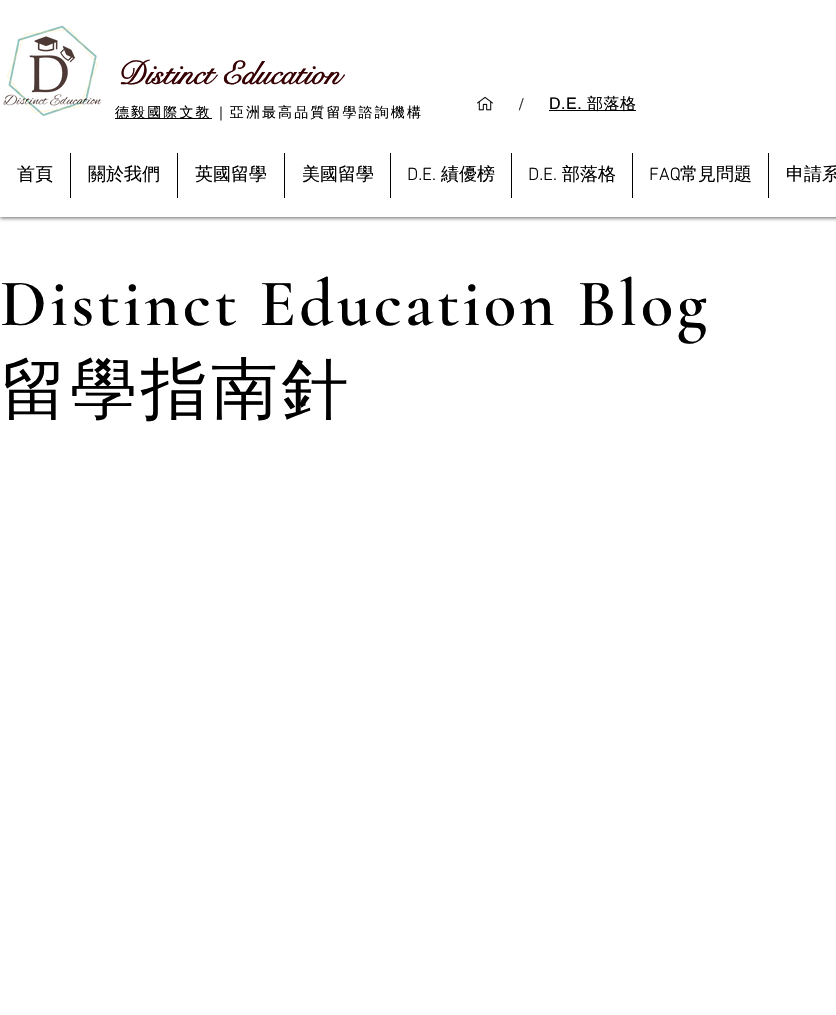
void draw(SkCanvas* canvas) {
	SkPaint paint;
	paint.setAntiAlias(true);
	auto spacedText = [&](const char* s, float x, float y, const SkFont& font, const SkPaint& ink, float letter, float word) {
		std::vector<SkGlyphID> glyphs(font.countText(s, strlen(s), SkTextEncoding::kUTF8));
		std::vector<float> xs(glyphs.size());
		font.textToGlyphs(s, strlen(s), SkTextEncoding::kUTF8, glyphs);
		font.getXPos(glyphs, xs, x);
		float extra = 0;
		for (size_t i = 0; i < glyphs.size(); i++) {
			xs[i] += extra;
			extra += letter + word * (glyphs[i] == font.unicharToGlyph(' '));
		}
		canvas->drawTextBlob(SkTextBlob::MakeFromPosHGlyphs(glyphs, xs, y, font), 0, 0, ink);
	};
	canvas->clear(0xffffffff);
	canvas->save();
	canvas->clipRect(SkRect::MakeXYWH(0, 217, 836, 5));
	paint.setColor(0x99000000);
	paint.setMaskFilter(SkMaskFilter::MakeBlur(kNormal_SkBlurStyle, 2));
	canvas->drawRect(SkRect::MakeXYWH(0, 1, 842, 217), paint);
	paint.setMaskFilter(nullptr);
	canvas->restore();
	canvas->drawImageRect(SkImages::DeferredFromEncodedData(SkData::MakeFromFileName("img1.png")), SkRect::MakeXYWH(3, 25, 99, 92), SkSamplingOptions());
	SkFont f1(fontMgr->matchFamilyStyle("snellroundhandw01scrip", SkFontStyle::Bold()), 32);
	f1.setSubpixel(true);
	paint.setColor(0xff370204);
	canvas->drawString("Distinct Education", 117, 84, f1, paint);
	paint.setColor(0xff000000);
	canvas->drawRect(SkRect::MakeXYWH(115, 118, 97, 1), paint);
	SkFont f2(fontMgr->matchFamilyStyle("WenQuanYi Zen Hei", SkFontStyle(500, SkFontStyle::kNormal_Width, SkFontStyle::kUpright_Slant)), 14);
	f2.setSubpixel(true);
	spacedText("德毅國際文教", 115, 117, f2, paint, 2.1, 0);
	spacedText("｜亞洲最高品質留學諮詢機構", 214, 117, f2, paint, 2.1, 0);
	canvas->drawImageRect(SkImages::DeferredFromEncodedData(SkData::MakeFromFileName("img2.png")), SkRect::MakeXYWH(477, 96, 16, 15), SkSamplingOptions());
	SkFont f3(fontMgr->matchFamilyStyle("helvetica", SkFontStyle::Normal()), 16);
	f3.setSubpixel(true);
	paint.setColor(0xff323232);
	canvas->drawString("/", 519, 110, f3, paint);
	paint.setColor(0xff000000);
	spacedText("D.E.", 549, 109, f3, paint, 0.5, 0);
	canvas->drawRect(SkRect::MakeXYWH(549, 110, 87, 1), paint);
	SkFont f4(fontMgr->matchFamilyStyle("WenQuanYi Zen Hei", SkFontStyle(500, SkFontStyle::kNormal_Width, SkFontStyle::kUpright_Slant)), 16);
	f4.setSubpixel(true);
	spacedText("部落格", 587, 109, f4, paint, 0.5, 0);
	SkFont f5(fontMgr->matchFamilyStyle("WenQuanYi Zen Hei", SkFontStyle(500, SkFontStyle::kNormal_Width, SkFontStyle::kUpright_Slant)), 18);
	f5.setSubpixel(true);
	canvas->drawString("首頁", 17, 180, f5, paint);
	canvas->drawRect(SkRect::MakeXYWH(70, 153, 1, 45), paint);
	canvas->drawString("關於我們", 88, 180, f5, paint);
	canvas->drawRect(SkRect::MakeXYWH(177, 153, 1, 45), paint);
	canvas->drawString("英國留學", 195, 180, f5, paint);
	canvas->drawRect(SkRect::MakeXYWH(284, 153, 1, 45), paint);
	canvas->drawString("美國留學", 302, 180, f5, paint);
	canvas->drawRect(SkRect::MakeXYWH(390, 153, 1, 45), paint);
	SkFont f6(fontMgr->matchFamilyStyle("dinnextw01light", SkFontStyle(300, SkFontStyle::kNormal_Width, SkFontStyle::kUpright_Slant)), 18);
	f6.setSubpixel(true);
	canvas->drawString("D.E.", 407, 180, f6, paint);
	canvas->drawString("績優榜", 441, 180, f5, paint);
	canvas->drawRect(SkRect::MakeXYWH(511, 153, 1, 45), paint);
	canvas->drawString("D.E.", 528, 180, f6, paint);
	canvas->drawString("部落格", 562, 180, f5, paint);
	canvas->drawRect(SkRect::MakeXYWH(632, 153, 1, 45), paint);
	canvas->drawString("FAQ", 649, 180, f6, paint);
	canvas->drawString("常見問題", 680, 180, f5, paint);
	canvas->drawRect(SkRect::MakeXYWH(768, 153, 1, 45), paint);
	canvas->drawString("申請系", 786, 180, f5, paint);
	SkFont f7(fontMgr->matchFamilyStyle("Cormorant Garamond", SkFontStyle(600, SkFontStyle::kNormal_Width, SkFontStyle::kUpright_Slant)), 67);
	f7.setSubpixel(true);
	spacedText("Distinct Education Blog", 0, 325, f7, paint, 3.35, 0);
	SkFont f8(fontMgr->matchFamilyStyle("WenQuanYi Zen Hei", SkFontStyle(500, SkFontStyle::kNormal_Width, SkFontStyle::kUpright_Slant)), 67);
	f8.setSubpixel(true);
	spacedText("留學指南針", 0, 412, f8, paint, 3.35, 0);
}
